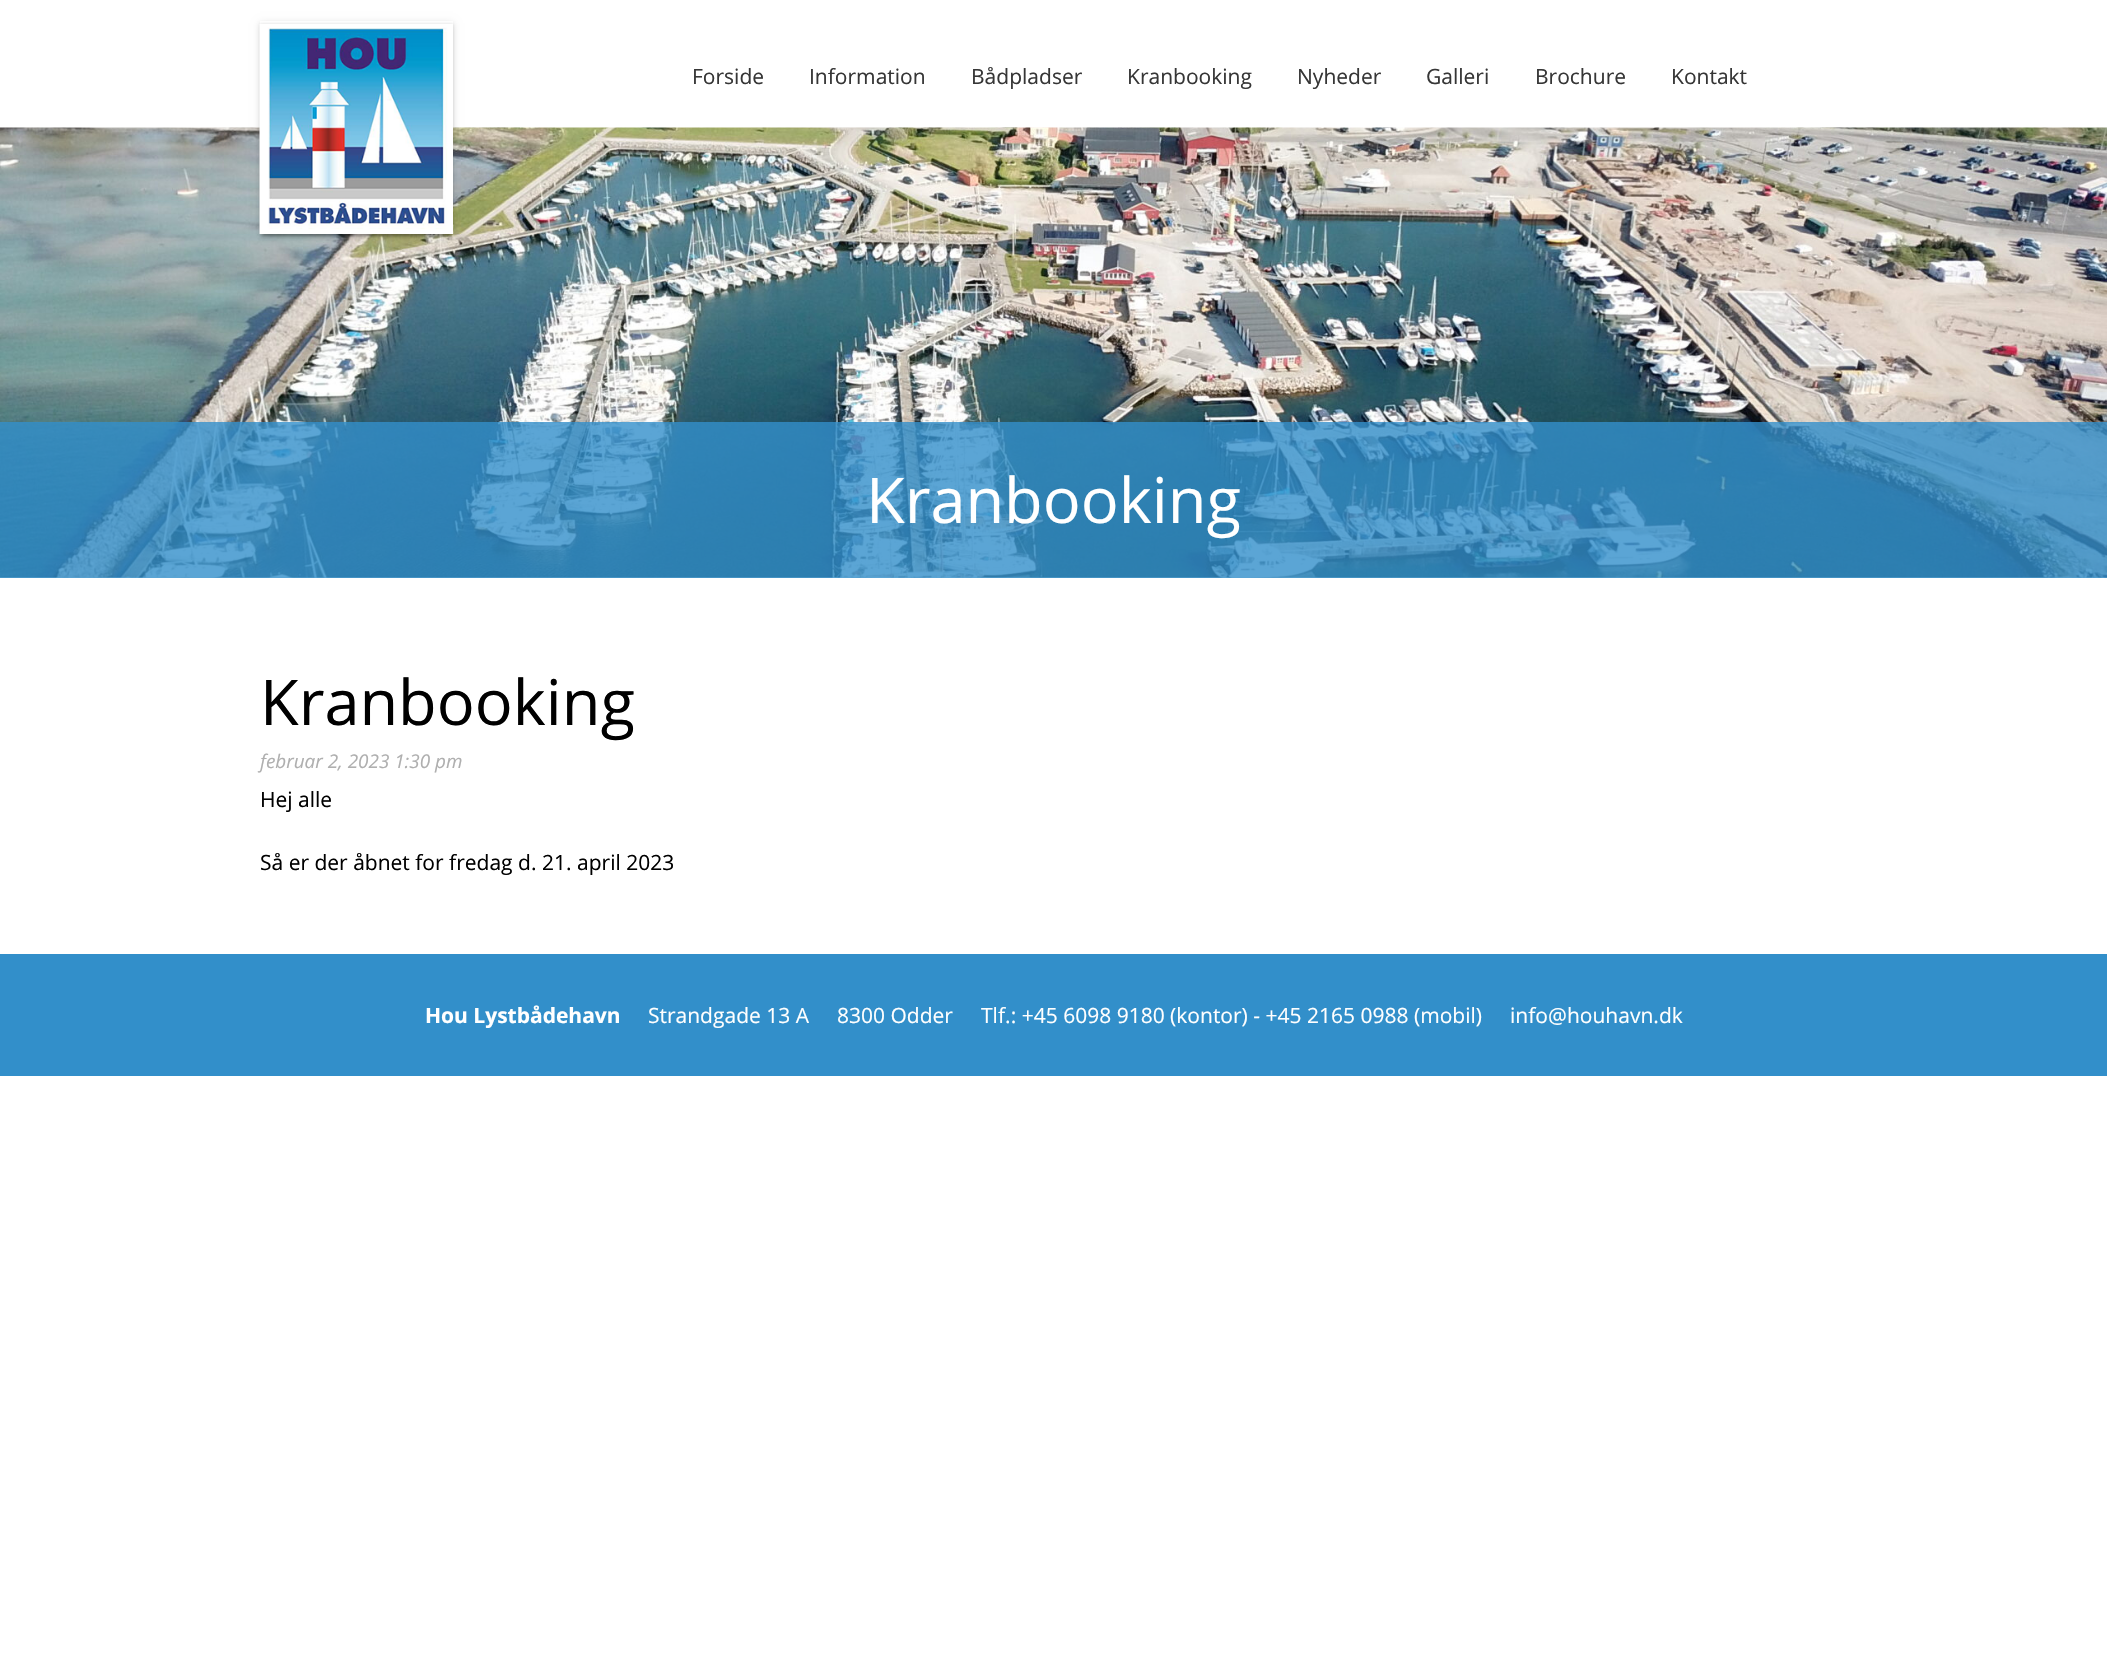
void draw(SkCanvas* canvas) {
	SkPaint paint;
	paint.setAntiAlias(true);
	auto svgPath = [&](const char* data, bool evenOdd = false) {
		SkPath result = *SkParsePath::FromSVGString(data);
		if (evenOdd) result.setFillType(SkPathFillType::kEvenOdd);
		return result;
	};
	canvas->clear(0xffffffff);
	canvas->drawImageRect(SkImages::DeferredFromEncodedData(SkData::MakeFromFileName("img2.png")), SkRect::MakeXYWH(0, 127, 2107, 451), SkSamplingOptions());
	canvas->save();
	canvas->clipPath(svgPath("M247 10H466V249H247ZM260 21H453V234H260Z", true), true);
	paint.setColor(0x1f000000);
	paint.setMaskFilter(SkMaskFilter::MakeBlur(kNormal_SkBlurStyle, 4));
	canvas->drawRect(SkRect::MakeXYWH(260, 23, 193, 213), paint);
	paint.setMaskFilter(nullptr);
	canvas->restore();
	paint.setColor(0x33000000);
	paint.setMaskFilter(SkMaskFilter::MakeBlur(kNormal_SkBlurStyle, 1));
	canvas->drawRect(SkRect::MakeXYWH(263, 29, 187, 207), paint);
	paint.setMaskFilter(nullptr);
	paint.setColor(0x24000000);
	paint.setMaskFilter(SkMaskFilter::MakeBlur(kNormal_SkBlurStyle, 1.5));
	canvas->drawRect(SkRect::MakeXYWH(260, 24, 193, 213), paint);
	paint.setMaskFilter(nullptr);
	canvas->drawImageRect(SkImages::DeferredFromEncodedData(SkData::MakeFromFileName("img1.png")), SkRect::MakeXYWH(259, 24, 194, 210), SkSamplingOptions());
	SkFont f1(fontMgr->matchFamilyStyle("Open Sans", SkFontStyle::Normal()), 21);
	f1.setSubpixel(true);
	paint.setColor(0xff363636);
	canvas->drawString("Forside", 692, 84, f1, paint);
	canvas->drawString("Information", 809, 84, f1, paint);
	canvas->drawString("Bådpladser", 971, 84, f1, paint);
	canvas->drawString("Kranbooking", 1127, 84, f1, paint);
	canvas->drawString("Nyheder", 1297, 84, f1, paint);
	canvas->drawString("Galleri", 1426, 84, f1, paint);
	canvas->drawString("Brochure", 1535, 84, f1, paint);
	canvas->drawString("Kontakt", 1671, 84, f1, paint);
	paint.setColor(0xcc328fca);
	canvas->drawRect(SkRect::MakeXYWH(0, 422, 2107, 156), paint);
	SkFont f2(fontMgr->matchFamilyStyle("Open Sans", SkFontStyle::Normal()), 63);
	f2.setSubpixel(true);
	paint.setColor(0xffffffff);
	canvas->drawString("Kranbooking", 866, 523, f2, paint);
	paint.setColor(0xff000000);
	canvas->drawString("Kranbooking", 260, 725, f2, paint);
	SkFont f3(fontMgr->matchFamilyStyle("Open Sans", SkFontStyle::Italic()), 18.9);
	f3.setSubpixel(true);
	paint.setColor(0xffafafaf);
	canvas->drawString("februar 2, 2023 1:30 pm", 260, 768, f3, paint);
	paint.setColor(0xff000000);
	canvas->drawString("Hej alle", 260, 807, f1, paint);
	canvas->drawString("Så er der åbnet for fredag d. 21. april 2023", 260, 870, f1, paint);
	paint.setColor(0xff328fca);
	canvas->drawRect(SkRect::MakeXYWH(0, 954, 2107, 122), paint);
	SkFont f4(fontMgr->matchFamilyStyle("Open Sans", SkFontStyle::Bold()), 21);
	f4.setSubpixel(true);
	paint.setColor(0xffffffff);
	canvas->drawString("Hou Lystbådehavn", 425, 1023, f4, paint);
	canvas->drawString("Strandgade 13 A", 648, 1023, f1, paint);
	canvas->drawString("8300 Odder", 837, 1023, f1, paint);
	canvas->drawString("Tlf.: +45 6098 9180 (kontor) - +45 2165 0988 (mobil)", 981, 1023, f1, paint);
	canvas->drawString("info@houhavn.dk", 1510, 1023, f1, paint);
}
